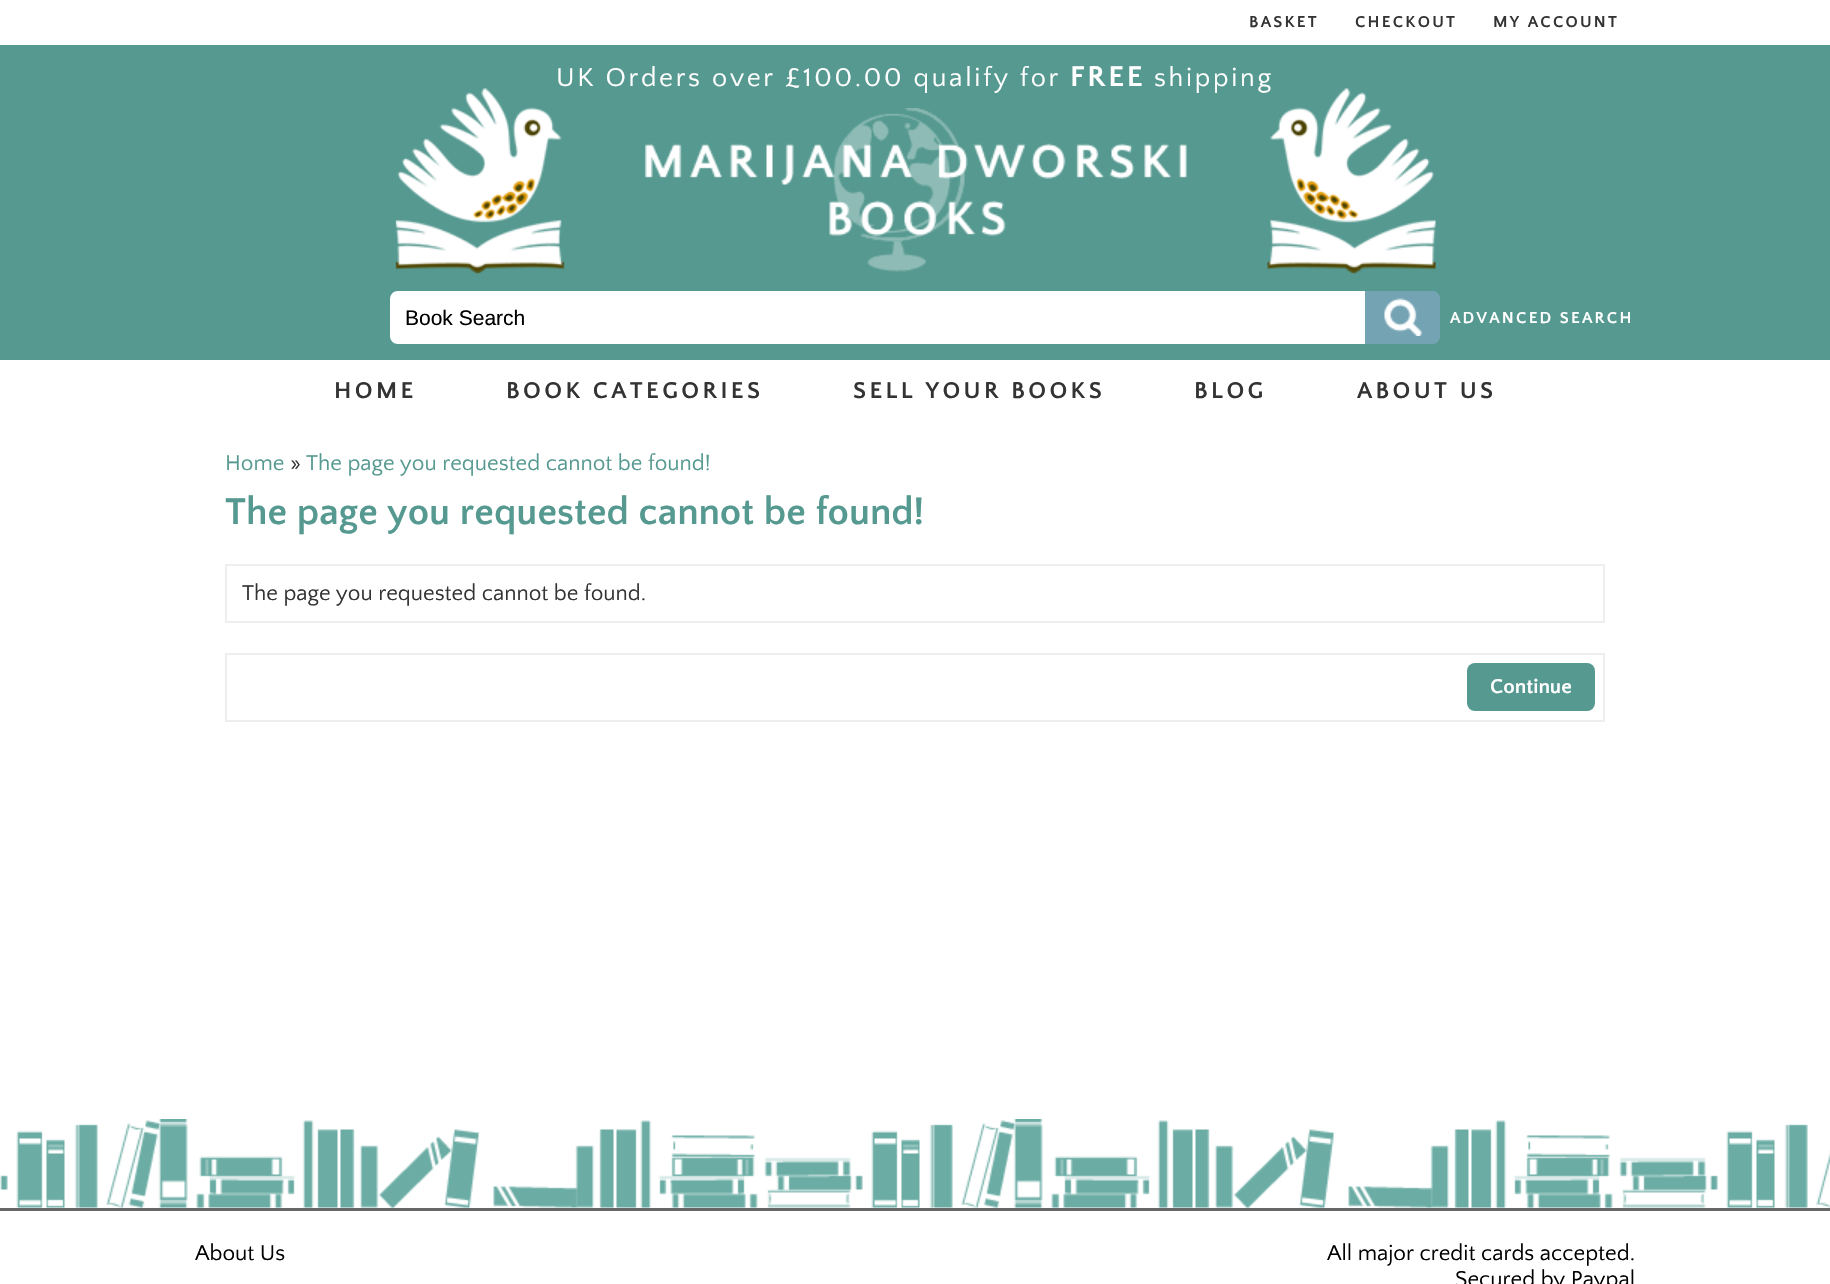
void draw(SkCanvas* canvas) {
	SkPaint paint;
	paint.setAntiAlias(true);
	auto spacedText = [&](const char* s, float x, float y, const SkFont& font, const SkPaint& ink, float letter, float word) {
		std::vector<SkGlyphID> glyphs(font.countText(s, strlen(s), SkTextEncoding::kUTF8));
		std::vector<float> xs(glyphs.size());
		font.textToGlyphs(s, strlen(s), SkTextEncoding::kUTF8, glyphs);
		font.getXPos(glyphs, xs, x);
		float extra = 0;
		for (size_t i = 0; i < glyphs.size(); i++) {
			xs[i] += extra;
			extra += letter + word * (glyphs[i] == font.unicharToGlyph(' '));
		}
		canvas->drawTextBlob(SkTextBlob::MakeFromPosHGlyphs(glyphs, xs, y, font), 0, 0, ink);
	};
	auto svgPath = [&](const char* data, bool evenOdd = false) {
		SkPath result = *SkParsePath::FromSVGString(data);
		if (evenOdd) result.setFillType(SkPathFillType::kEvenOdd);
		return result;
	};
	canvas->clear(0xffffffff);
	paint.setColor(0xff559990);
	canvas->drawRect(SkRect::MakeXYWH(0, 45, 1830, 315), paint);
	SkFont f1(fontMgr->matchFamilyStyle("Quattrocento Sans", SkFontStyle::Bold()), 16.5);
	f1.setSubpixel(true);
	paint.setColor(0xff333333);
	spacedText("BASKET", 1249, 27, f1, paint, 2.25, 0);
	spacedText("CHECKOUT", 1355, 27, f1, paint, 2.25, 0);
	spacedText("MY ACCOUNT", 1493, 27, f1, paint, 2.25, 0);
	canvas->drawImageRect(SkImages::DeferredFromEncodedData(SkData::MakeFromFileName("img1.png")), SkRect::MakeXYWH(395, 88, 1041, 186), SkSamplingOptions());
	SkFont f2(fontMgr->matchFamilyStyle("Quattrocento Sans", SkFontStyle::Normal()), 27);
	f2.setSubpixel(true);
	paint.setColor(0xffffffff);
	spacedText("UK Orders over £100.00 qualify for", 556, 86, f2, paint, 2.7, 0);
	SkFont f3(fontMgr->matchFamilyStyle("Quattrocento Sans", SkFontStyle::Bold()), 30);
	f3.setSubpixel(true);
	spacedText("FREE", 1070, 86, f3, paint, 2.7, 0);
	spacedText("shipping", 1154, 86, f2, paint, 2.7, 0);
	canvas->drawImageRect(SkImages::DeferredFromEncodedData(SkData::MakeFromFileName("img2.png")), SkRect::MakeXYWH(645, 108, 542, 164), SkSamplingOptions());
	canvas->drawPath(svgPath("M398 291H1365V344H398C393.5 344 390 340.5 390 336V299C390 294.5 393.5 291 398 291Z"), paint);
	SkFont f4(fontMgr->matchFamilyStyle("Liberation Sans", SkFontStyle::Normal()), 21);
	f4.setSubpixel(true);
	paint.setColor(0xff000000);
	canvas->drawString("Book Search", 405, 325, f4, paint);
	paint.setColor(0xff74a3b3);
	canvas->drawPath(svgPath("M1365 291H1432C1436.5 291 1440 294.5 1440 299V336C1440 340.5 1436.5 344 1432 344H1365Z"), paint);
	canvas->drawImageRect(SkImages::DeferredFromEncodedData(SkData::MakeFromFileName("img3.png")), SkRect::MakeXYWH(1384, 298, 38, 38), SkSamplingOptions());
	paint.setStroke(true);
	paint.setStrokeWidth(2);
	canvas->drawPath(svgPath("M1366 292H1432C1436 292 1439 295 1439 299V336C1439 340 1436 343 1432 343H1366Z"), paint);
	paint.setStroke(false);
	paint.setColor(0xffffffff);
	spacedText("ADVANCED SEARCH", 1450, 323, f1, paint, 2.25, 0);
	SkFont f5(fontMgr->matchFamilyStyle("Quattrocento Sans", SkFontStyle::Bold()), 24);
	f5.setSubpixel(true);
	paint.setColor(0xff333333);
	spacedText("HOME", 334, 398, f5, paint, 3.4, 0);
	spacedText("BOOK CATEGORIES", 506, 398, f5, paint, 3.4, 0);
	spacedText("SELL YOUR BOOKS", 853, 398, f5, paint, 3.4, 0);
	spacedText("BLOG", 1194, 398, f5, paint, 3.4, 0);
	spacedText("ABOUT US", 1357, 398, f5, paint, 3.4, 0);
	SkFont f6(fontMgr->matchFamilyStyle("Quattrocento Sans", SkFontStyle::Normal()), 22.5);
	f6.setSubpixel(true);
	paint.setColor(0xff559990);
	canvas->drawString("Home", 225, 470, f6, paint);
	paint.setColor(0xff333333);
	canvas->drawString("»", 290, 470, f6, paint);
	paint.setColor(0xff559990);
	canvas->drawString("The page you requested cannot be found!", 306, 470, f6, paint);
	SkFont f7(fontMgr->matchFamilyStyle("Quattrocento Sans", SkFontStyle::Bold()), 39);
	f7.setSubpixel(true);
	canvas->drawString("The page you requested cannot be found!", 225, 524, f7, paint);
	paint.setStroke(true);
	paint.setColor(0xffeeeeee);
	canvas->drawRect(SkRect::MakeXYWH(226, 565, 1378, 57), paint);
	paint.setStroke(false);
	paint.setColor(0xff333333);
	canvas->drawString("The page you requested cannot be found.", 242, 600, f6, paint);
	paint.setStroke(true);
	paint.setColor(0xffeeeeee);
	canvas->drawRect(SkRect::MakeXYWH(226, 654, 1378, 67), paint);
	paint.setStroke(false);
	paint.setColor(0xff559990);
	canvas->drawRoundRect(SkRect::MakeXYWH(1467, 663, 128, 48), 8, 8, paint);
	SkFont f8(fontMgr->matchFamilyStyle("Quattrocento Sans", SkFontStyle::Bold()), 21);
	f8.setSubpixel(true);
	paint.setColor(0xffffffff);
	canvas->drawString("Continue", 1490, 693, f8, paint);
	canvas->drawImageRect(SkImages::DeferredFromEncodedData(SkData::MakeFromFileName("img4.png")), SkRect::MakeXYWH(0, 1119, 1830, 89), SkSamplingOptions());
	paint.setColor(0xff666666);
	canvas->drawRect(SkRect::MakeXYWH(0, 1208, 1830, 3), paint);
	paint.setColor(0xff000000);
	canvas->drawString("About Us", 195, 1260, f6, paint);
	canvas->drawString("All major credit cards accepted.", 1327, 1260, f6, paint);
	canvas->drawString("Secured by Paypal", 1455, 1286, f6, paint);
}
